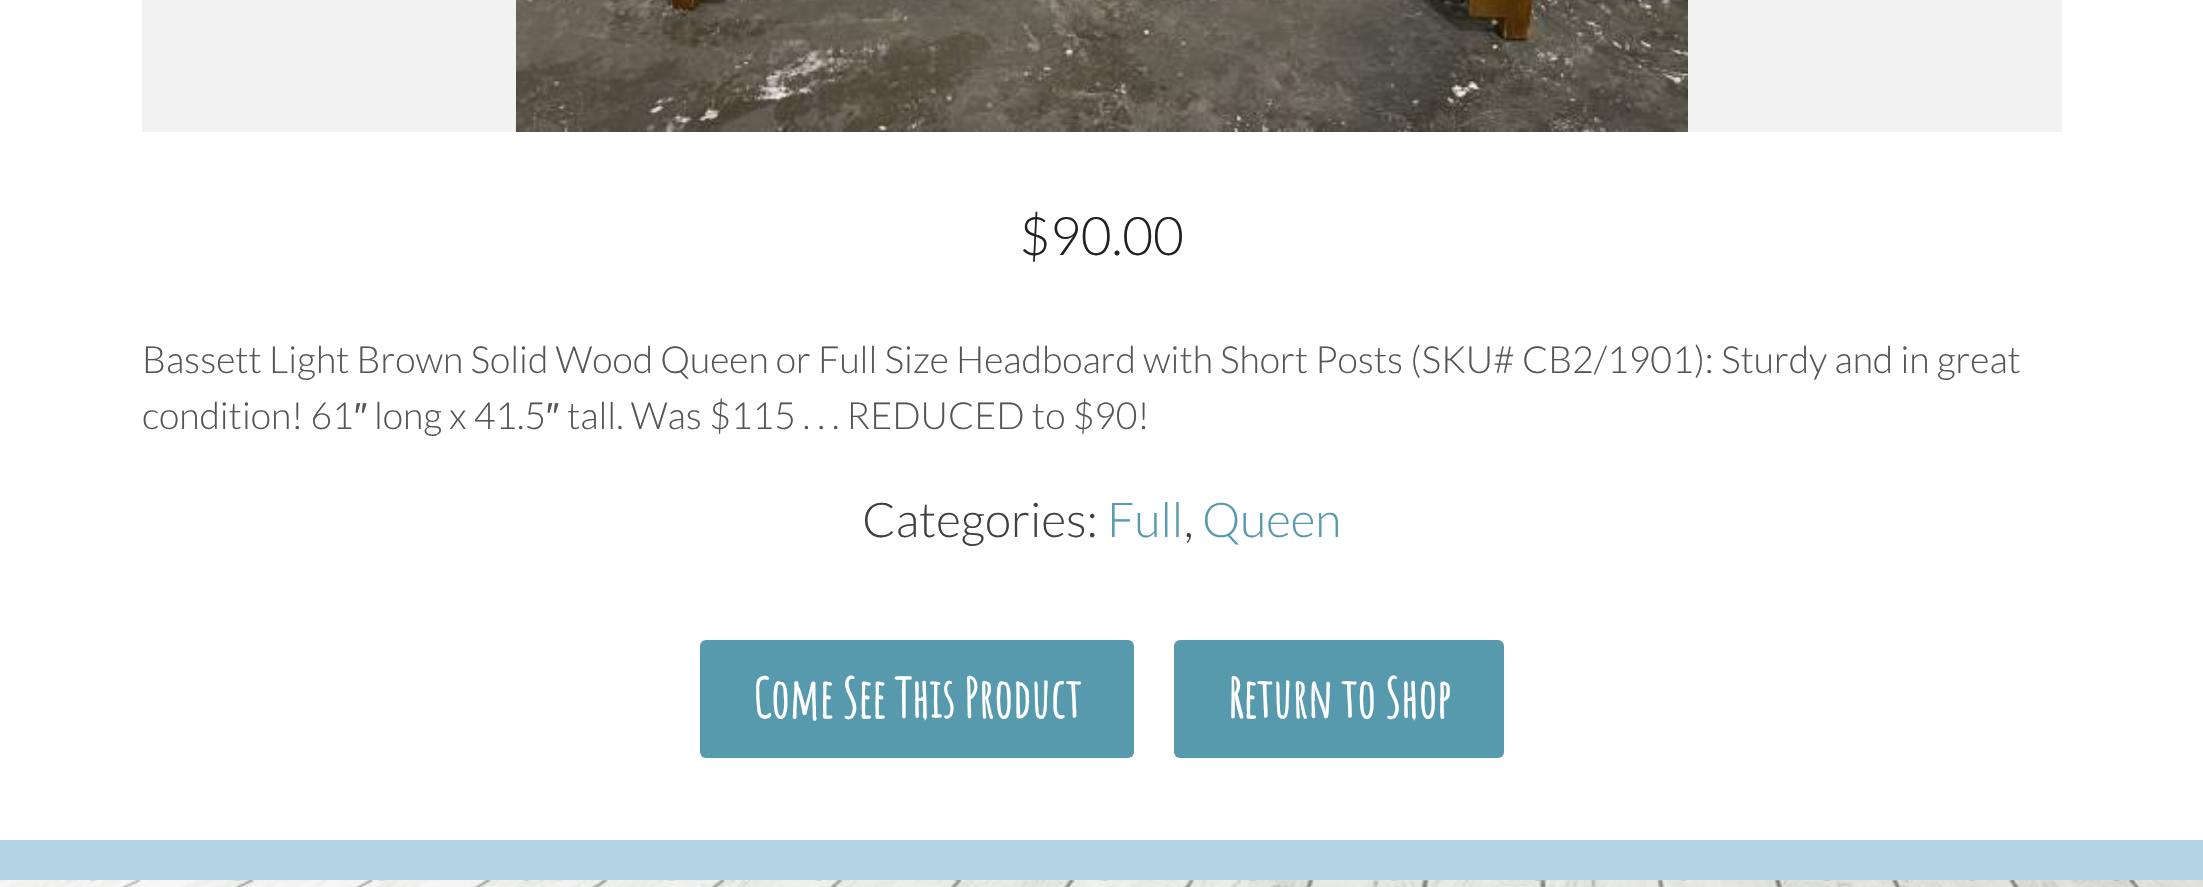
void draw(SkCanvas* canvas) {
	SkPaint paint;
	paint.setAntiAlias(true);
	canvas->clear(0xffffffff);
	paint.setColor(0xfff2f2f2);
	canvas->drawRect(SkRect::MakeXYWH(142, 0, 1920, 132), paint);
	canvas->drawImageRect(SkImages::DeferredFromEncodedData(SkData::MakeFromFileName("img1.png")), SkRect::MakeXYWH(516, 0, 1172, 132), SkSamplingOptions());
	SkFont f1(fontMgr->matchFamilyStyle("Lato", SkFontStyle(300, SkFontStyle::kNormal_Width, SkFontStyle::kUpright_Slant)), 53.25);
	f1.setSubpixel(true);
	paint.setColor(0xff222222);
	canvas->drawString("$90.00", 1019, 255, f1, paint);
	SkFont f2(fontMgr->matchFamilyStyle("Lato", SkFontStyle(300, SkFontStyle::kNormal_Width, SkFontStyle::kUpright_Slant)), 37.33);
	f2.setSubpixel(true);
	paint.setColor(0xff555555);
	canvas->drawString("Bassett Light Brown Solid Wood Queen or Full Size Headboard with Short Posts (SKU# CB2/1901): Sturdy and in great", 142, 373, f2, paint);
	canvas->drawString("condition! 61", 142, 429, f2, paint);
	SkFont f3(fontMgr->matchFamilyStyle("Liberation Sans", SkFontStyle::Normal()), 37.33);
	f3.setSubpixel(true);
	canvas->drawString("″", 354, 429, f3, paint);
	canvas->drawString("long x 41.5", 374, 429, f2, paint);
	canvas->drawString("″", 546, 429, f3, paint);
	canvas->drawString("tall. Was $115 . . . REDUCED to $90!", 567, 429, f2, paint);
	SkFont f4(fontMgr->matchFamilyStyle("Lato", SkFontStyle(300, SkFontStyle::kNormal_Width, SkFontStyle::kUpright_Slant)), 48);
	f4.setSubpixel(true);
	paint.setColor(0xff404040);
	canvas->drawString("Categories:", 862, 537, f4, paint);
	paint.setColor(0xff5799ad);
	canvas->drawString("Full", 1107, 537, f4, paint);
	paint.setColor(0xff404040);
	canvas->drawString(",", 1184, 537, f4, paint);
	paint.setColor(0xff5799ad);
	canvas->drawString("Queen", 1202, 537, f4, paint);
	canvas->drawRoundRect(SkRect::MakeXYWH(700, 640, 434, 118), 6, 6, paint);
	SkFont f5(fontMgr->matchFamilyStyle("Amatic SC", SkFontStyle::Bold()), 53.25);
	f5.setSubpixel(true);
	paint.setColor(0xffffffff);
	canvas->drawString("Come See This Product", 753, 718, f5, paint);
	paint.setColor(0xff5799ad);
	canvas->drawRoundRect(SkRect::MakeXYWH(1174, 640, 330, 118), 6, 6, paint);
	paint.setColor(0xffffffff);
	canvas->drawString("Return to Shop", 1228, 718, f5, paint);
	canvas->drawImageRect(SkImages::DeferredFromEncodedData(SkData::MakeFromFileName("img2.png")), SkRect::MakeXYWH(0, 880, 2203, 7), SkSamplingOptions());
	paint.setColor(0xffb3d4e5);
	canvas->drawRect(SkRect::MakeXYWH(0, 840, 2203, 40), paint);
}
